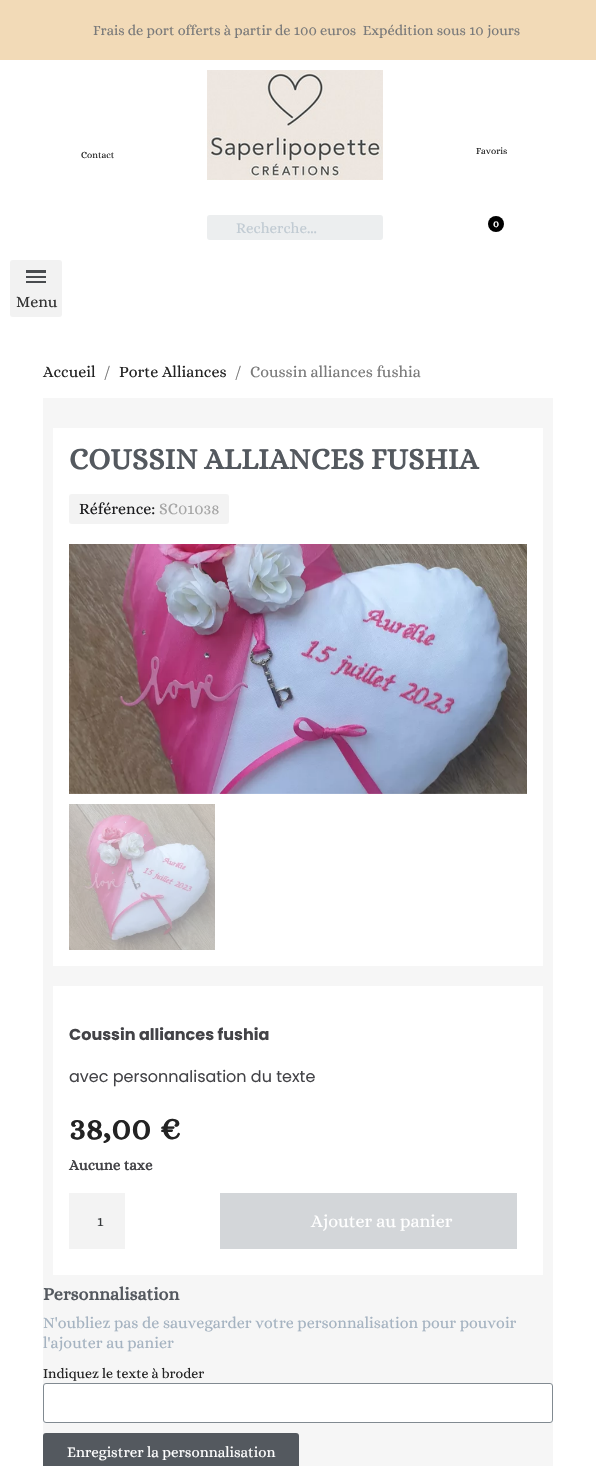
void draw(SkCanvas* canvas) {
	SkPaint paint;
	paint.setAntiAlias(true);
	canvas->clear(0xffffffff);
	paint.setColor(0xfff2dab7);
	canvas->drawRect(SkRect::MakeXYWH(0, 0, 596, 60), paint);
	SkFont f1(fontMgr->matchFamilyStyle("Alice", SkFontStyle::Normal()), 14.4);
	f1.setSubpixel(true);
	paint.setColor(0xff7a7a7a);
	canvas->drawString("Frais de port offerts à partir de 100 euros  Expédition sous 10 jours", 93, 35, f1, paint);
	SkFont f2(fontMgr->matchFamilyStyle("Alice", SkFontStyle::Normal()), 9.5);
	f2.setSubpixel(true);
	paint.setColor(0xff232323);
	canvas->drawString("Contact", 81, 158, f2, paint);
	canvas->drawImageRect(SkImages::DeferredFromEncodedData(SkData::MakeFromFileName("img1.png")), SkRect::MakeXYWH(207, 70, 176, 110), SkSamplingOptions());
	canvas->drawString("Favoris", 476, 154, f2, paint);
	paint.setColor(0xffeceeef);
	canvas->drawRoundRect(SkRect::MakeXYWH(207, 215, 176, 25), 3, 3, paint);
	SkFont f3(fontMgr->matchFamilyStyle("Alice", SkFontStyle::Normal()), 15);
	f3.setSubpixel(true);
	paint.setColor(0xffc1cbd3);
	canvas->drawString("Recherche...", 236, 233, f3, paint);
	paint.setColor(0xff000000);
	canvas->drawCircle(496, 224, 8, paint);
	SkFont f4(fontMgr->matchFamilyStyle("Alice", SkFontStyle::Bold()), 10);
	f4.setSubpixel(true);
	paint.setColor(0xffffffff);
	canvas->drawString("0", 493, 227, f4, paint);
	paint.setColor(0xfff2f2f2);
	canvas->drawRoundRect(SkRect::MakeXYWH(10, 260, 52, 57), 3, 3, paint);
	paint.setColor(0xff494c4f);
	canvas->drawRect(SkRect::MakeXYWH(26, 276, 20, 2), paint);
	canvas->drawRect(SkRect::MakeXYWH(26, 270, 20, 3), paint);
	canvas->drawRect(SkRect::MakeXYWH(26, 281, 20, 2), paint);
	SkFont f5(fontMgr->matchFamilyStyle("Alice", SkFontStyle::Normal()), 16);
	f5.setSubpixel(true);
	paint.setColor(0xff333333);
	canvas->drawString("Menu", 16, 307, f5, paint);
	paint.setColor(0xff232323);
	canvas->drawString("Accueil", 43, 377, f5, paint);
	paint.setColor(0xff7a7a7a);
	canvas->drawString("/", 104, 377, f5, paint);
	paint.setColor(0xff232323);
	canvas->drawString("Porte Alliances", 119, 377, f5, paint);
	paint.setColor(0xff7a7a7a);
	canvas->drawString("/", 235, 377, f5, paint);
	canvas->drawString("Coussin alliances fushia", 250, 377, f5, paint);
	paint.setColor(0xfff6f6f6);
	canvas->drawRect(SkRect::MakeXYWH(43, 398, 510, 1068), paint);
	paint.setColor(0xffffffff);
	canvas->drawRect(SkRect::MakeXYWH(53, 428, 490, 538), paint);
	SkFont f6(fontMgr->matchFamilyStyle("Alice", SkFontStyle::Bold()), 30);
	f6.setSubpixel(true);
	paint.setColor(0xff54595f);
	canvas->drawString("COUSSIN ALLIANCES FUSHIA", 69, 469, f6, paint);
	paint.setColor(0xfff3f3f3);
	canvas->drawRoundRect(SkRect::MakeXYWH(69, 494, 160, 30), 3, 3, paint);
	paint.setColor(0xff1d1d1f);
	canvas->drawString("Référence:", 79, 514, f5, paint);
	paint.setColor(0xffa5a5a5);
	canvas->drawString("SC01038", 159, 514, f5, paint);
	canvas->drawImageRect(SkImages::DeferredFromEncodedData(SkData::MakeFromFileName("img2.png")), SkRect::MakeXYWH(69, 544, 458, 250), SkSamplingOptions());
	canvas->drawImageRect(SkImages::DeferredFromEncodedData(SkData::MakeFromFileName("img3.png")), SkRect::MakeXYWH(69, 804, 146, 146), SkSamplingOptions());
	paint.setColor(0xffffffff);
	canvas->drawRect(SkRect::MakeXYWH(53, 986, 490, 289), paint);
	SkFont f7(fontMgr->matchFamilyStyle("Poppins", SkFontStyle::Bold()), 16);
	f7.setSubpixel(true);
	paint.setColor(0xff434347);
	canvas->drawString("Coussin alliances fushia", 69, 1040, f7, paint);
	SkFont f8(fontMgr->matchFamilyStyle("Poppins", SkFontStyle::Normal()), 16);
	f8.setSubpixel(true);
	canvas->drawString("avec personnalisation du texte", 69, 1082, f8, paint);
	SkFont f9(fontMgr->matchFamilyStyle("Alice", SkFontStyle::Bold()), 34);
	f9.setSubpixel(true);
	paint.setColor(0xff232323);
	canvas->drawString("38,00 €", 69, 1139, f9, paint);
	SkFont f10(fontMgr->matchFamilyStyle("Alice", SkFontStyle::Bold()), 15);
	f10.setSubpixel(true);
	paint.setColor(0xff434347);
	canvas->drawString("Aucune taxe", 69, 1170, f10, paint);
	paint.setColor(0xfff3f3f3);
	canvas->drawRect(SkRect::MakeXYWH(69, 1193, 56, 56), paint);
	paint.setColor(0xff373a3c);
	canvas->drawString("1", 97, 1226, f3, paint);
	paint.setColor(0xffd3d6d9);
	canvas->drawRect(SkRect::MakeXYWH(220, 1193, 297, 56), paint);
	SkFont f11(fontMgr->matchFamilyStyle("Alice", SkFontStyle::Normal()), 18);
	f11.setSubpixel(true);
	paint.setColor(0xffffffff);
	canvas->drawString("Ajouter au panier", 311, 1227, f11, paint);
	SkFont f12(fontMgr->matchFamilyStyle("Alice", SkFontStyle::Bold()), 18);
	f12.setSubpixel(true);
	paint.setColor(0xff54595f);
	canvas->drawString("Personnalisation", 43, 1300, f12, paint);
	paint.setColor(0xffa5b3c1);
	canvas->drawString("N'oubliez pas de sauvegarder votre personnalisation pour pouvoir", 43, 1328, f5, paint);
	canvas->drawString("l'ajouter au panier", 43, 1348, f5, paint);
	SkFont f13(fontMgr->matchFamilyStyle("Alice", SkFontStyle::Normal()), 14);
	f13.setSubpixel(true);
	paint.setColor(0xff232323);
	canvas->drawString("Indiquez le texte à broder", 43, 1378, f13, paint);
	paint.setColor(0xffffffff);
	canvas->drawRoundRect(SkRect::MakeXYWH(43.5, 1383.5, 509, 39), 2.5, 2.5, paint);
	paint.setStroke(true);
	paint.setStrokeWidth(1);
	paint.setColor(0xff818a91);
	canvas->drawRoundRect(SkRect::MakeXYWH(43.5, 1383.5, 509, 39), 2.5, 2.5, paint);
	paint.setStroke(false);
	paint.setColor(0xff54595f);
	canvas->drawRoundRect(SkRect::MakeXYWH(43, 1433, 256, 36), 3, 3, paint);
	paint.setColor(0xffffffff);
	canvas->drawString("Enregistrer la personnalisation", 67, 1457, f3, paint);
}
